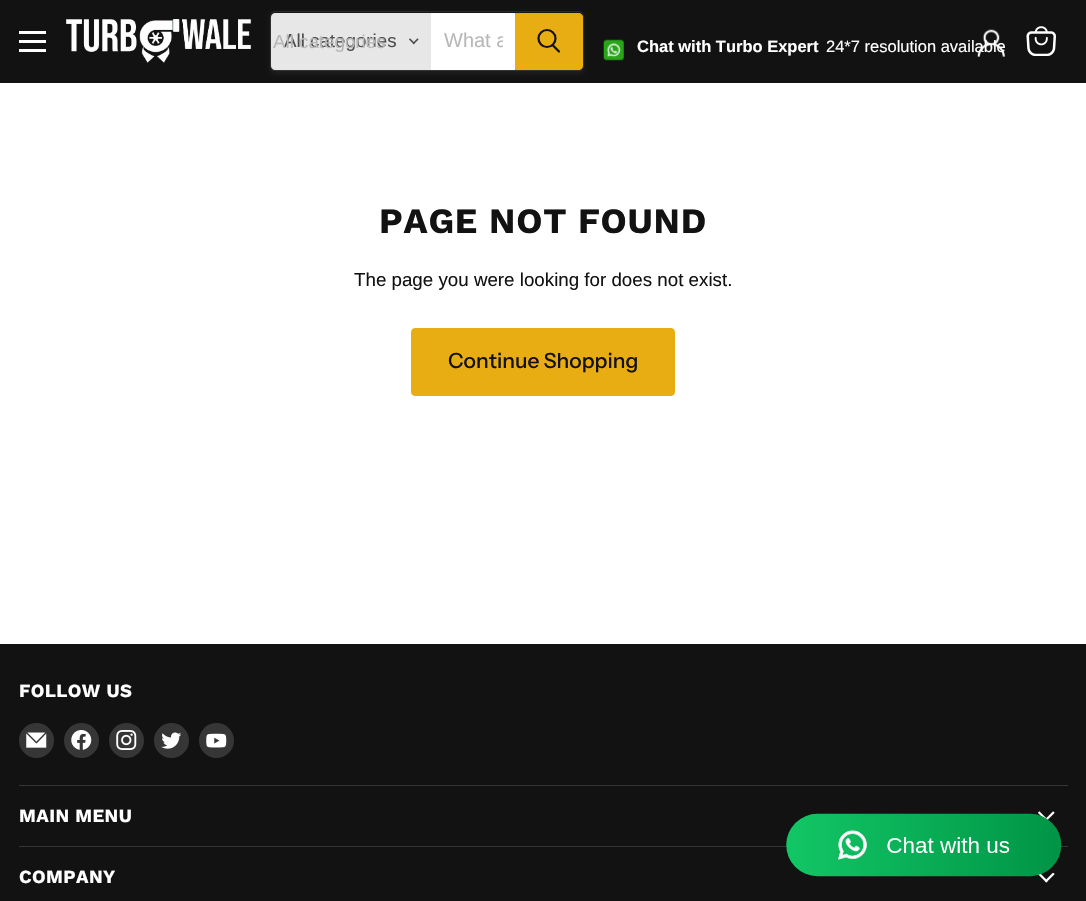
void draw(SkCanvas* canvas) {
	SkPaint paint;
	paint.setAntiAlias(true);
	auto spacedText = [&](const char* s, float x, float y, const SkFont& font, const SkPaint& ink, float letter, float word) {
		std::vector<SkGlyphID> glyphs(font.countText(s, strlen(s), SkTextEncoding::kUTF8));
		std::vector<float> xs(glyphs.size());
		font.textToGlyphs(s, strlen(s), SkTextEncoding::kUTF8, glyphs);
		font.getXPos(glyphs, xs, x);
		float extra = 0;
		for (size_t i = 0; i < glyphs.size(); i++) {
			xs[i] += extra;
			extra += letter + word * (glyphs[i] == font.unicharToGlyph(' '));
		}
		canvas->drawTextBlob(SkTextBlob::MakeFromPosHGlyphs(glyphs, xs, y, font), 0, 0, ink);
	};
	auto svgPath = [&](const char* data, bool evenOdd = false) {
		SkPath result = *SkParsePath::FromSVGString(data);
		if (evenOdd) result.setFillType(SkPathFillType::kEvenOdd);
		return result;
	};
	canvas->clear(0xffffffff);
	paint.setColor(0xff121212);
	canvas->drawRect(SkRect::MakeXYWH(0, 0, 1086, 83), paint);
	paint.setColor(0xffffffff);
	canvas->drawRect(SkRect::MakeXYWH(19, 31, 27, 3), paint);
	canvas->drawRect(SkRect::MakeXYWH(19, 40, 27, 3), paint);
	canvas->drawRect(SkRect::MakeXYWH(19, 49, 27, 3), paint);
	canvas->drawImageRect(SkImages::DeferredFromEncodedData(SkData::MakeFromFileName("img1.png")), SkRect::MakeXYWH(66, 19, 186, 44), SkSamplingOptions());
	paint.setColor(0x1c808080);
	paint.setMaskFilter(SkMaskFilter::MakeBlur(kNormal_SkBlurStyle, 2));
	canvas->drawRoundRect(SkRect::MakeXYWH(270, 14, 314, 60), 5, 5, paint);
	paint.setMaskFilter(nullptr);
	paint.setStroke(true);
	paint.setStrokeWidth(1);
	paint.setColor(0x33808080);
	canvas->drawRoundRect(SkRect::MakeXYWH(270.5, 11.5, 313, 59), 4.5, 4.5, paint);
	paint.setStroke(false);
	paint.setColor(0xffe7e7e7);
	canvas->drawPath(svgPath("M275 13H431V70H275C273 70 271 68 271 66V17C271 15 273 13 275 13Z"), paint);
	SkFont f1(fontMgr->matchFamilyStyle("Liberation Sans", SkFontStyle::Normal()), 18.75);
	f1.setSubpixel(true);
	paint.setColor(0xff4d4d4d);
	canvas->drawString("All categories", 284, 47, f1, paint);
	paint.setColor(0xffb8b8b8);
	canvas->drawString("All categories", 273, 48, f1, paint);
	canvas->drawImageRect(SkImages::DeferredFromEncodedData(SkData::MakeFromFileName("img2.png")), SkRect::MakeXYWH(409, 38, 10, 7), SkSamplingOptions());
	paint.setColor(0xffffffff);
	canvas->drawRect(SkRect::MakeXYWH(431, 13, 84, 57), paint);
	canvas->save();
	canvas->clipRect(SkRect::MakeXYWH(444, 30, 59, 23));
	SkFont f2(fontMgr->matchFamilyStyle("Liberation Sans", SkFontStyle::Normal()), 20);
	f2.setSubpixel(true);
	paint.setColor(0xffb8b8b8);
	canvas->drawString("What a", 444, 47, f2, paint);
	canvas->restore();
	paint.setColor(0xffe9ad14);
	canvas->drawPath(svgPath("M515.5 13.5H579C581 13.5 582.5 15 582.5 17V66C582.5 68 581 69.5 579 69.5H515.5Z"), paint);
	paint.setStroke(true);
	canvas->drawPath(svgPath("M515.5 13.5H579C581 13.5 582.5 15 582.5 17V66C582.5 68 581 69.5 579 69.5H515.5Z"), paint);
	paint.setStrokeWidth(2.2);
	paint.setStrokeCap(SkPaint::kRound_Cap);
	paint.setColor(0xff121212);
	canvas->drawPath(svgPath("M559 51.5L553 45.5"), paint);
	paint.setStrokeCap(SkPaint::kButt_Cap);
	canvas->drawCircle(547, 38.5, 8.5, paint);
	canvas->drawImageRect(SkImages::DeferredFromEncodedData(SkData::MakeFromFileName("img3.png")), SkRect::MakeXYWH(603, 39, 21, 22), SkSamplingOptions());
	SkFont f3(fontMgr->matchFamilyStyle("Liberation Sans", SkFontStyle::Bold()), 16.5);
	f3.setSubpixel(true);
	paint.setStroke(false);
	paint.setColor(0xffffffff);
	canvas->drawString("Chat with Turbo Expert", 637, 52, f3, paint);
	SkFont f4(fontMgr->matchFamilyStyle("Liberation Sans", SkFontStyle::Normal()), 16.5);
	f4.setSubpixel(true);
	canvas->drawString("24*7 resolution available", 826, 52, f4, paint);
	canvas->drawImageRect(SkImages::DeferredFromEncodedData(SkData::MakeFromFileName("img4.png")), SkRect::MakeXYWH(977, 29, 28, 28), SkSamplingOptions());
	canvas->drawImageRect(SkImages::DeferredFromEncodedData(SkData::MakeFromFileName("img5.png")), SkRect::MakeXYWH(1026, 26, 30, 30), SkSamplingOptions());
	SkFont f5(fontMgr->matchFamilyStyle("Work Sans", SkFontStyle::Bold()), 35.6);
	f5.setSubpixel(true);
	paint.setColor(0xff121212);
	spacedText("PAGE NOT FOUND", 379, 233, f5, paint, 0.75, 0);
	canvas->drawString("The page you were looking for does not exist.", 354, 286, f1, paint);
	paint.setColor(0xffe9ad14);
	canvas->drawRoundRect(SkRect::MakeXYWH(411.5, 328.5, 263, 67), 3.5, 3.5, paint);
	paint.setStroke(true);
	paint.setStrokeWidth(1);
	canvas->drawRoundRect(SkRect::MakeXYWH(411.5, 328.5, 263, 67), 3.5, 3.5, paint);
	SkFont f6(fontMgr->matchFamilyStyle("Instrument Sans", SkFontStyle(500, SkFontStyle::kNormal_Width, SkFontStyle::kUpright_Slant)), 21);
	f6.setSubpixel(true);
	paint.setStroke(false);
	paint.setColor(0xff121212);
	canvas->drawString("Continue Shopping", 448, 368, f6, paint);
	canvas->drawRect(SkRect::MakeXYWH(0, 644, 1086, 257), paint);
	paint.setColor(0xff363636);
	canvas->drawRect(SkRect::MakeXYWH(19, 785, 1049, 1), paint);
	SkFont f7(fontMgr->matchFamilyStyle("Work Sans", SkFontStyle::Bold()), 18.5);
	f7.setSubpixel(true);
	paint.setColor(0xffffffff);
	spacedText("FOLLOW US", 19, 697, f7, paint, 0.4, 0);
	paint.setColor(0xff363636);
	canvas->drawCircle(36.5, 740.5, 17.5, paint);
	canvas->drawImageRect(SkImages::DeferredFromEncodedData(SkData::MakeFromFileName("img6.png")), SkRect::MakeXYWH(26, 732, 21, 16), SkSamplingOptions());
	canvas->drawCircle(81.5, 740.5, 17.5, paint);
	canvas->drawImageRect(SkImages::DeferredFromEncodedData(SkData::MakeFromFileName("img7.png")), SkRect::MakeXYWH(71, 730, 21, 20), SkSamplingOptions());
	canvas->drawCircle(126.5, 740.5, 17.5, paint);
	canvas->drawImageRect(SkImages::DeferredFromEncodedData(SkData::MakeFromFileName("img8.png")), SkRect::MakeXYWH(116, 730, 21, 20), SkSamplingOptions());
	canvas->drawCircle(171.5, 740.5, 17.5, paint);
	canvas->drawImageRect(SkImages::DeferredFromEncodedData(SkData::MakeFromFileName("img9.png")), SkRect::MakeXYWH(161, 732, 21, 17), SkSamplingOptions());
	canvas->drawCircle(216.5, 740.5, 17.5, paint);
	canvas->drawImageRect(SkImages::DeferredFromEncodedData(SkData::MakeFromFileName("img10.png")), SkRect::MakeXYWH(206, 733, 21, 15), SkSamplingOptions());
	canvas->drawRect(SkRect::MakeXYWH(19, 846, 1049, 1), paint);
	paint.setColor(0xffffffff);
	spacedText("MAIN MENU", 19, 822, f7, paint, 0.4, 0);
	canvas->drawImageRect(SkImages::DeferredFromEncodedData(SkData::MakeFromFileName("img11.png")), SkRect::MakeXYWH(1038, 811, 17, 9), SkSamplingOptions());
	spacedText("COMPANY", 19, 883, f7, paint, 0.4, 0);
	canvas->drawImageRect(SkImages::DeferredFromEncodedData(SkData::MakeFromFileName("img12.png")), SkRect::MakeXYWH(1038, 873, 17, 10), SkSamplingOptions());
	canvas->drawImageRect(SkImages::DeferredFromEncodedData(SkData::MakeFromFileName("img13.png")), SkRect::MakeXYWH(786, 813, 276, 64), SkSamplingOptions());
}
